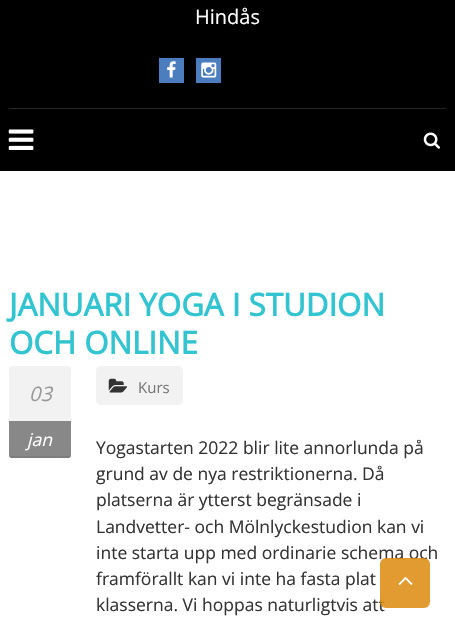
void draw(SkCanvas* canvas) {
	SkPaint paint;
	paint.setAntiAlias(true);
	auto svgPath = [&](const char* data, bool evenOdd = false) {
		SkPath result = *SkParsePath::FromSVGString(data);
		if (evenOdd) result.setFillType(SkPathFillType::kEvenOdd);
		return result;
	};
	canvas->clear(0xffffffff);
	paint.setColor(0xff000000);
	canvas->drawRect(SkRect::MakeXYWH(0, 0, 455, 171), paint);
	paint.setColor(0xff262626);
	canvas->drawRect(SkRect::MakeXYWH(9, 108, 437, 1), paint);
	SkFont f1(fontMgr->matchFamilyStyle("Open Sans", SkFontStyle::Normal()), 20);
	f1.setSubpixel(true);
	paint.setColor(0xffffffff);
	canvas->drawString("Hindås", 195, 24, f1, paint);
	paint.setColor(0xff4b7dbf);
	canvas->drawRect(SkRect::MakeXYWH(159, 58, 25, 25), paint);
	canvas->drawImageRect(SkImages::DeferredFromEncodedData(SkData::MakeFromFileName("img1.png")), SkRect::MakeXYWH(167, 61, 9, 17), SkSamplingOptions());
	canvas->drawRect(SkRect::MakeXYWH(196, 58, 25, 25), paint);
	canvas->drawImageRect(SkImages::DeferredFromEncodedData(SkData::MakeFromFileName("img2.png")), SkRect::MakeXYWH(201, 62, 16, 16), SkSamplingOptions());
	canvas->drawImageRect(SkImages::DeferredFromEncodedData(SkData::MakeFromFileName("img3.png")), SkRect::MakeXYWH(8, 129, 26, 21), SkSamplingOptions());
	canvas->drawImageRect(SkImages::DeferredFromEncodedData(SkData::MakeFromFileName("img4.png")), SkRect::MakeXYWH(423, 132, 17, 17), SkSamplingOptions());
	SkFont f2(fontMgr->matchFamilyStyle("Open Sans", SkFontStyle::Bold()), 31.25);
	f2.setSubpixel(true);
	paint.setColor(0xff32c4d1);
	canvas->drawString("JANUARI YOGA I STUDION", 9, 316, f2, paint);
	canvas->drawString("OCH ONLINE", 9, 354, f2, paint);
	paint.setColor(0xfff2f2f2);
	canvas->drawPath(svgPath("M11.5 366H68.5C70 366 71 367 71 368.5V421H9V368.5C9 367 10 366 11.5 366Z"), paint);
	SkFont f3(fontMgr->matchFamilyStyle("Open Sans", SkFontStyle::Italic()), 20);
	f3.setSubpixel(true);
	paint.setColor(0xff999999);
	canvas->drawString("03", 29, 401, f3, paint);
	paint.setColor(0xff888888);
	canvas->drawPath(svgPath("M9 421H71V455.5C71 457 70 458 68.5 458H11.5C10 458 9 457 9 455.5Z"), paint);
	paint.setColor(0x12000000);
	canvas->drawPath(svgPath("M9 454C9 460 15 458 21 458H59C65 458 71 460 71 454C71 455 70 456 69 456H11C10 456 9 455 9 454Z"), paint);
	SkFont f4(fontMgr->matchFamilyStyle("Open Sans", SkFontStyle::Italic()), 17.5);
	f4.setSubpixel(true);
	paint.setColor(0xffffffff);
	canvas->drawString("jan", 27, 446, f4, paint);
	paint.setColor(0xfff2f2f2);
	canvas->drawRoundRect(SkRect::MakeXYWH(96, 366, 87, 39), 5, 5, paint);
	canvas->drawImageRect(SkImages::DeferredFromEncodedData(SkData::MakeFromFileName("img5.png")), SkRect::MakeXYWH(108, 378, 20, 15), SkSamplingOptions());
	SkFont f5(fontMgr->matchFamilyStyle("Open Sans", SkFontStyle::Normal()), 15);
	f5.setSubpixel(true);
	paint.setColor(0xff777777);
	canvas->drawString("Kurs", 138, 393, f5, paint);
	SkFont f6(fontMgr->matchFamilyStyle("Open Sans", SkFontStyle::Normal()), 17.5);
	f6.setSubpixel(true);
	paint.setColor(0xff333333);
	canvas->drawString("Yogastarten 2022 blir lite annorlunda på", 96, 454, f6, paint);
	canvas->drawString("grund av de nya restriktionerna. Då", 96, 480, f6, paint);
	canvas->drawString("platserna är ytterst begränsade i", 96, 506, f6, paint);
	canvas->drawString("Landvetter- och Mölnlyckestudion kan vi", 96, 533, f6, paint);
	canvas->drawString("inte starta upp med ordinarie schema och", 96, 559, f6, paint);
	canvas->drawString("framförallt kan vi inte ha fasta plat", 96, 585, f6, paint);
	canvas->drawString("klasserna. Vi hoppas naturligtvis att", 96, 611, f6, paint);
	paint.setColor(0xd9dd8a0d);
	canvas->drawRoundRect(SkRect::MakeXYWH(380, 558, 50, 50), 6, 6, paint);
	canvas->drawImageRect(SkImages::DeferredFromEncodedData(SkData::MakeFromFileName("img6.png")), SkRect::MakeXYWH(398, 576, 15, 9), SkSamplingOptions());
}
